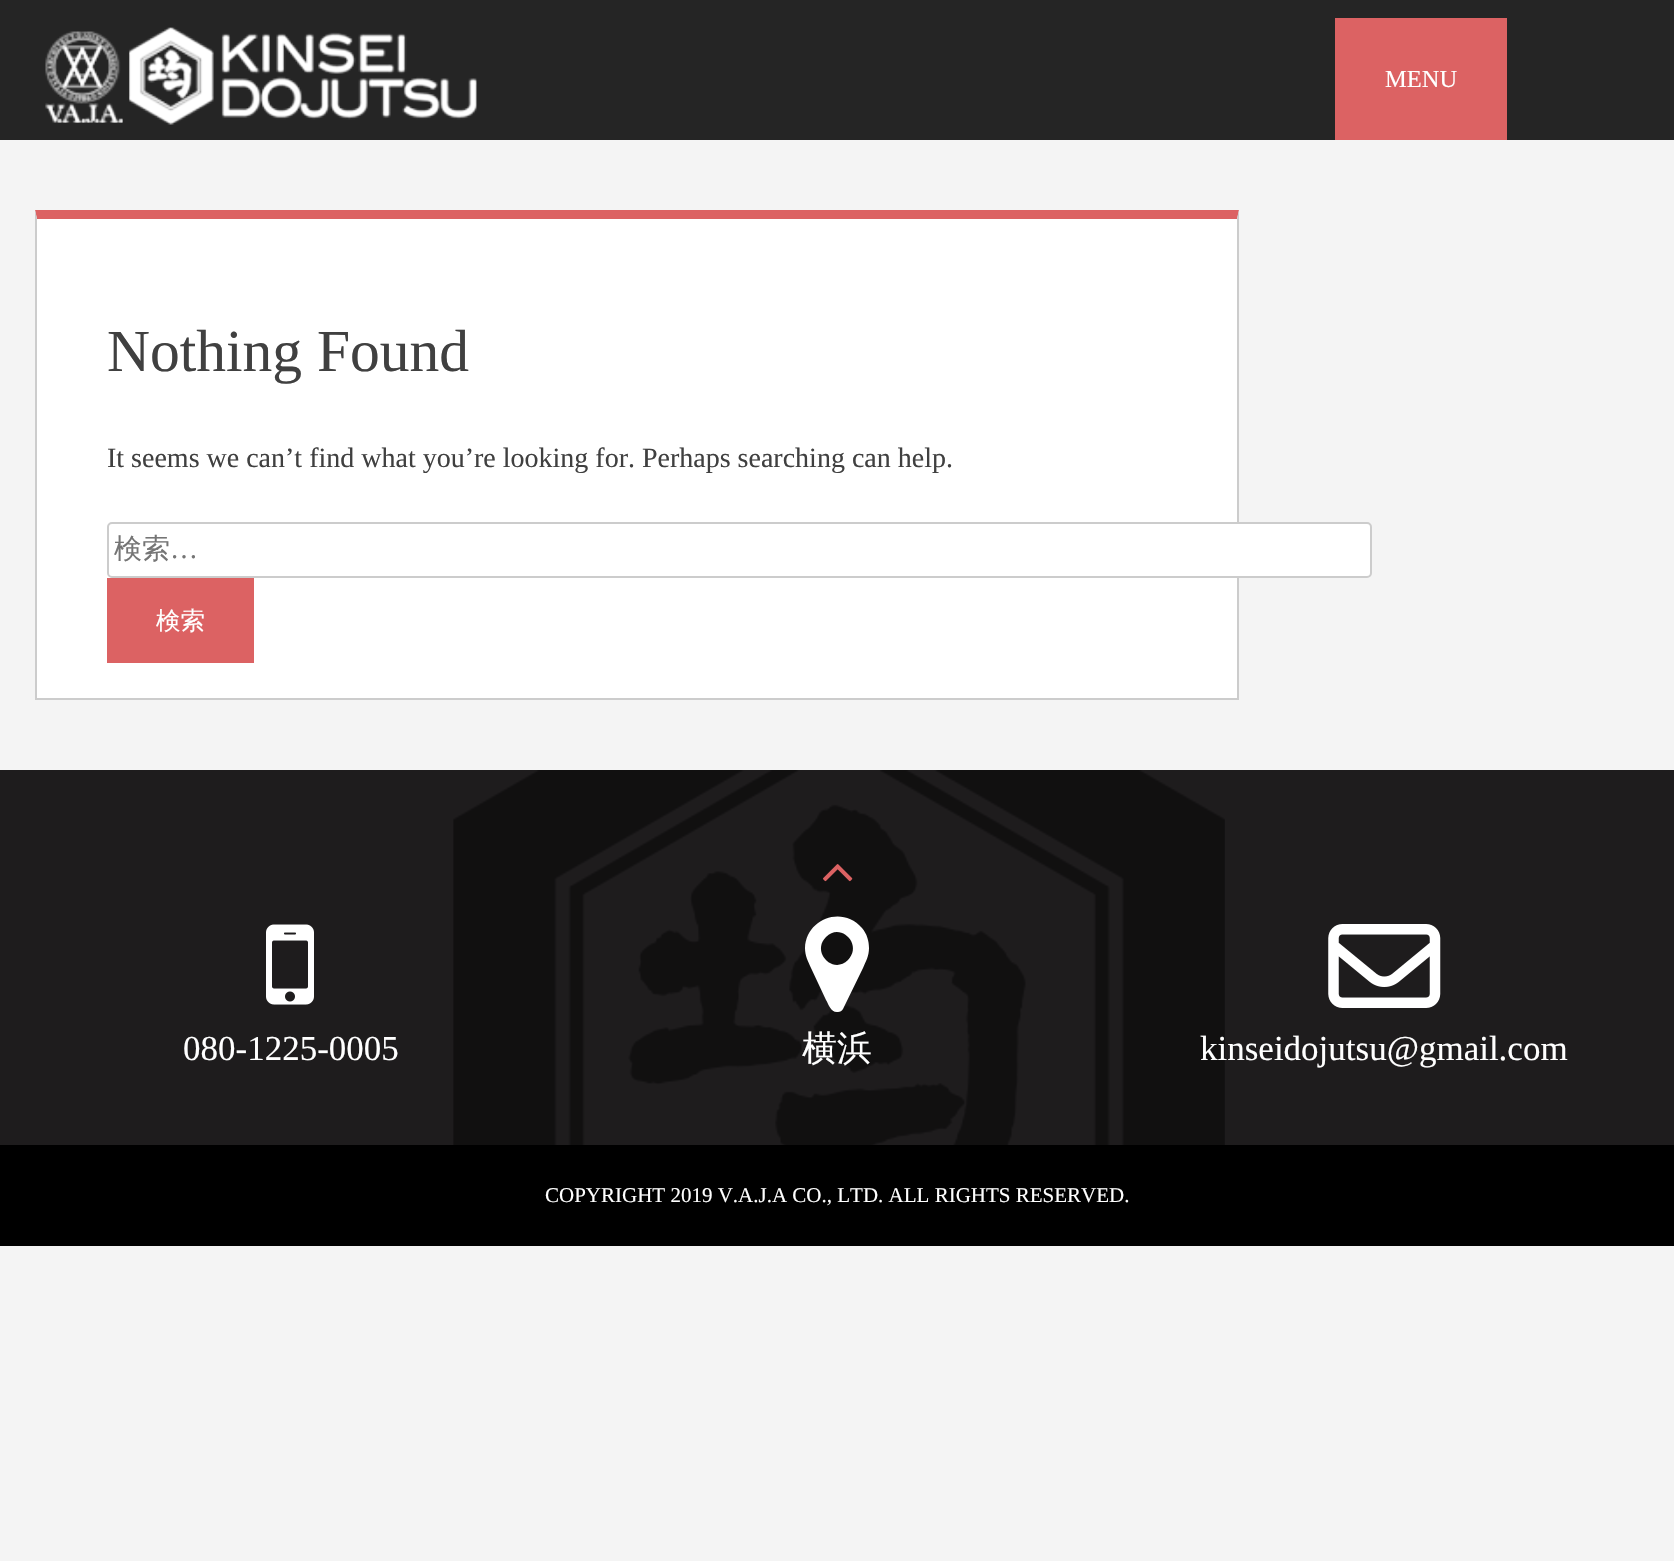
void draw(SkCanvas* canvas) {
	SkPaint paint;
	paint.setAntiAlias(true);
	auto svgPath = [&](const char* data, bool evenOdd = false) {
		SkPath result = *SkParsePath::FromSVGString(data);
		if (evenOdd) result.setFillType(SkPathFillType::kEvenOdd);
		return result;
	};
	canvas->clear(0xfff4f4f4);
	paint.setColor(0xff252525);
	canvas->drawRect(SkRect::MakeXYWH(0, 0, 1674, 140), paint);
	canvas->drawImageRect(SkImages::DeferredFromEncodedData(SkData::MakeFromFileName("img1.png")), SkRect::MakeXYWH(45, 27, 432, 98), SkSamplingOptions());
	canvas->drawImageRect(SkImages::DeferredFromEncodedData(SkData::MakeFromFileName("img2.png")), SkRect::MakeXYWH(45, 27, 432, 98), SkSamplingOptions());
	paint.setColor(0xffdc6263);
	canvas->drawRect(SkRect::MakeXYWH(1335, 18, 172, 122), paint);
	SkFont f1(fontMgr->matchFamilyStyle("Liberation Serif", SkFontStyle::Normal()), 24.5);
	f1.setSubpixel(true);
	paint.setColor(0xffffffff);
	canvas->drawString("MENU", 1385, 87, f1, paint);
	canvas->drawRect(SkRect::MakeXYWH(37, 219, 1200, 479), paint);
	paint.setColor(0xffdc6263);
	canvas->drawPath(svgPath("M35 210H1239L1237 219H37Z"), paint);
	paint.setColor(0xffcccccc);
	canvas->drawPath(svgPath("M1239 210V700L1237 698V219Z"), paint);
	canvas->drawRect(SkRect::MakeXYWH(35, 698, 1204, 2), paint);
	canvas->drawPath(svgPath("M35 700V210L37 219V698Z"), paint);
	SkFont f2(fontMgr->matchFamilyStyle("Liberation Serif", SkFontStyle::Normal()), 59.5);
	f2.setSubpixel(true);
	paint.setColor(0xff404040);
	canvas->drawString("Nothing Found", 107, 371, f2, paint);
	SkFont f3(fontMgr->matchFamilyStyle("Liberation Serif", SkFontStyle::Normal()), 28);
	f3.setSubpixel(true);
	canvas->drawString("It seems we can’t find what you’re looking for. Perhaps searching can help.", 107, 467, f3, paint);
	paint.setColor(0xffffffff);
	canvas->drawRoundRect(SkRect::MakeXYWH(108, 523, 1263, 54), 4, 4, paint);
	paint.setStroke(true);
	paint.setStrokeWidth(2);
	paint.setColor(0xffcccccc);
	canvas->drawRoundRect(SkRect::MakeXYWH(108, 523, 1263, 54), 4, 4, paint);
	SkFont f4(fontMgr->matchFamilyStyle("WenQuanYi Zen Hei", SkFontStyle(500, SkFontStyle::kNormal_Width, SkFontStyle::kUpright_Slant)), 28);
	f4.setSubpixel(true);
	paint.setStroke(false);
	paint.setColor(0xff757575);
	canvas->drawString("検索", 114, 558, f4, paint);
	canvas->drawString("…", 170, 558, f3, paint);
	paint.setColor(0xffdc6263);
	canvas->drawRect(SkRect::MakeXYWH(107, 578, 147, 85), paint);
	SkFont f5(fontMgr->matchFamilyStyle("WenQuanYi Zen Hei", SkFontStyle(500, SkFontStyle::kNormal_Width, SkFontStyle::kUpright_Slant)), 24.5);
	f5.setSubpixel(true);
	paint.setColor(0xffffffff);
	canvas->drawString("検索", 156, 629, f5, paint);
	paint.setColor(0xff1e1c1d);
	canvas->drawRect(SkRect::MakeXYWH(0, 770, 1674, 375), paint);
	canvas->drawImageRect(SkImages::DeferredFromEncodedData(SkData::MakeFromFileName("img3.png")), SkRect::MakeXYWH(453, 770, 772, 375), SkSamplingOptions());
	canvas->drawImageRect(SkImages::DeferredFromEncodedData(SkData::MakeFromFileName("img4.png")), SkRect::MakeXYWH(823, 864, 30, 18), SkSamplingOptions());
	canvas->drawImageRect(SkImages::DeferredFromEncodedData(SkData::MakeFromFileName("img5.png")), SkRect::MakeXYWH(266, 924, 48, 81), SkSamplingOptions());
	SkFont f6(fontMgr->matchFamilyStyle("Liberation Serif", SkFontStyle::Normal()), 35);
	f6.setSubpixel(true);
	paint.setColor(0xffffffff);
	canvas->drawString("080-1225-0005", 183, 1060, f6, paint);
	canvas->drawPath(svgPath("M848 960C863 945 841 922 826 937C811 952 833 975 848 960ZM869 948C869 956 866 961 863 968L843 1009C842 1011 840 1012 838 1012C831 1013 829 1005 826 1000L811 968C808 961 805 956 805 948C806 919 842 905 862 928C867 934 869 941 869 948Z"), paint);
	SkFont f7(fontMgr->matchFamilyStyle("WenQuanYi Zen Hei", SkFontStyle(500, SkFontStyle::kNormal_Width, SkFontStyle::kUpright_Slant)), 35);
	f7.setSubpixel(true);
	canvas->drawString("横浜", 802, 1060, f7, paint);
	canvas->drawImageRect(SkImages::DeferredFromEncodedData(SkData::MakeFromFileName("img6.png")), SkRect::MakeXYWH(1328, 924, 113, 84), SkSamplingOptions());
	canvas->drawString("kinseidojutsu@gmail.com", 1200, 1060, f6, paint);
	paint.setColor(0xff000000);
	canvas->drawRect(SkRect::MakeXYWH(0, 1145, 1674, 101), paint);
	SkFont f8(fontMgr->matchFamilyStyle("Liberation Serif", SkFontStyle::Normal()), 21);
	f8.setSubpixel(true);
	paint.setColor(0xffffffff);
	canvas->drawString("COPYRIGHT 2019 V.A.J.A CO., LTD. ALL RIGHTS RESERVED.", 545, 1202, f8, paint);
}
